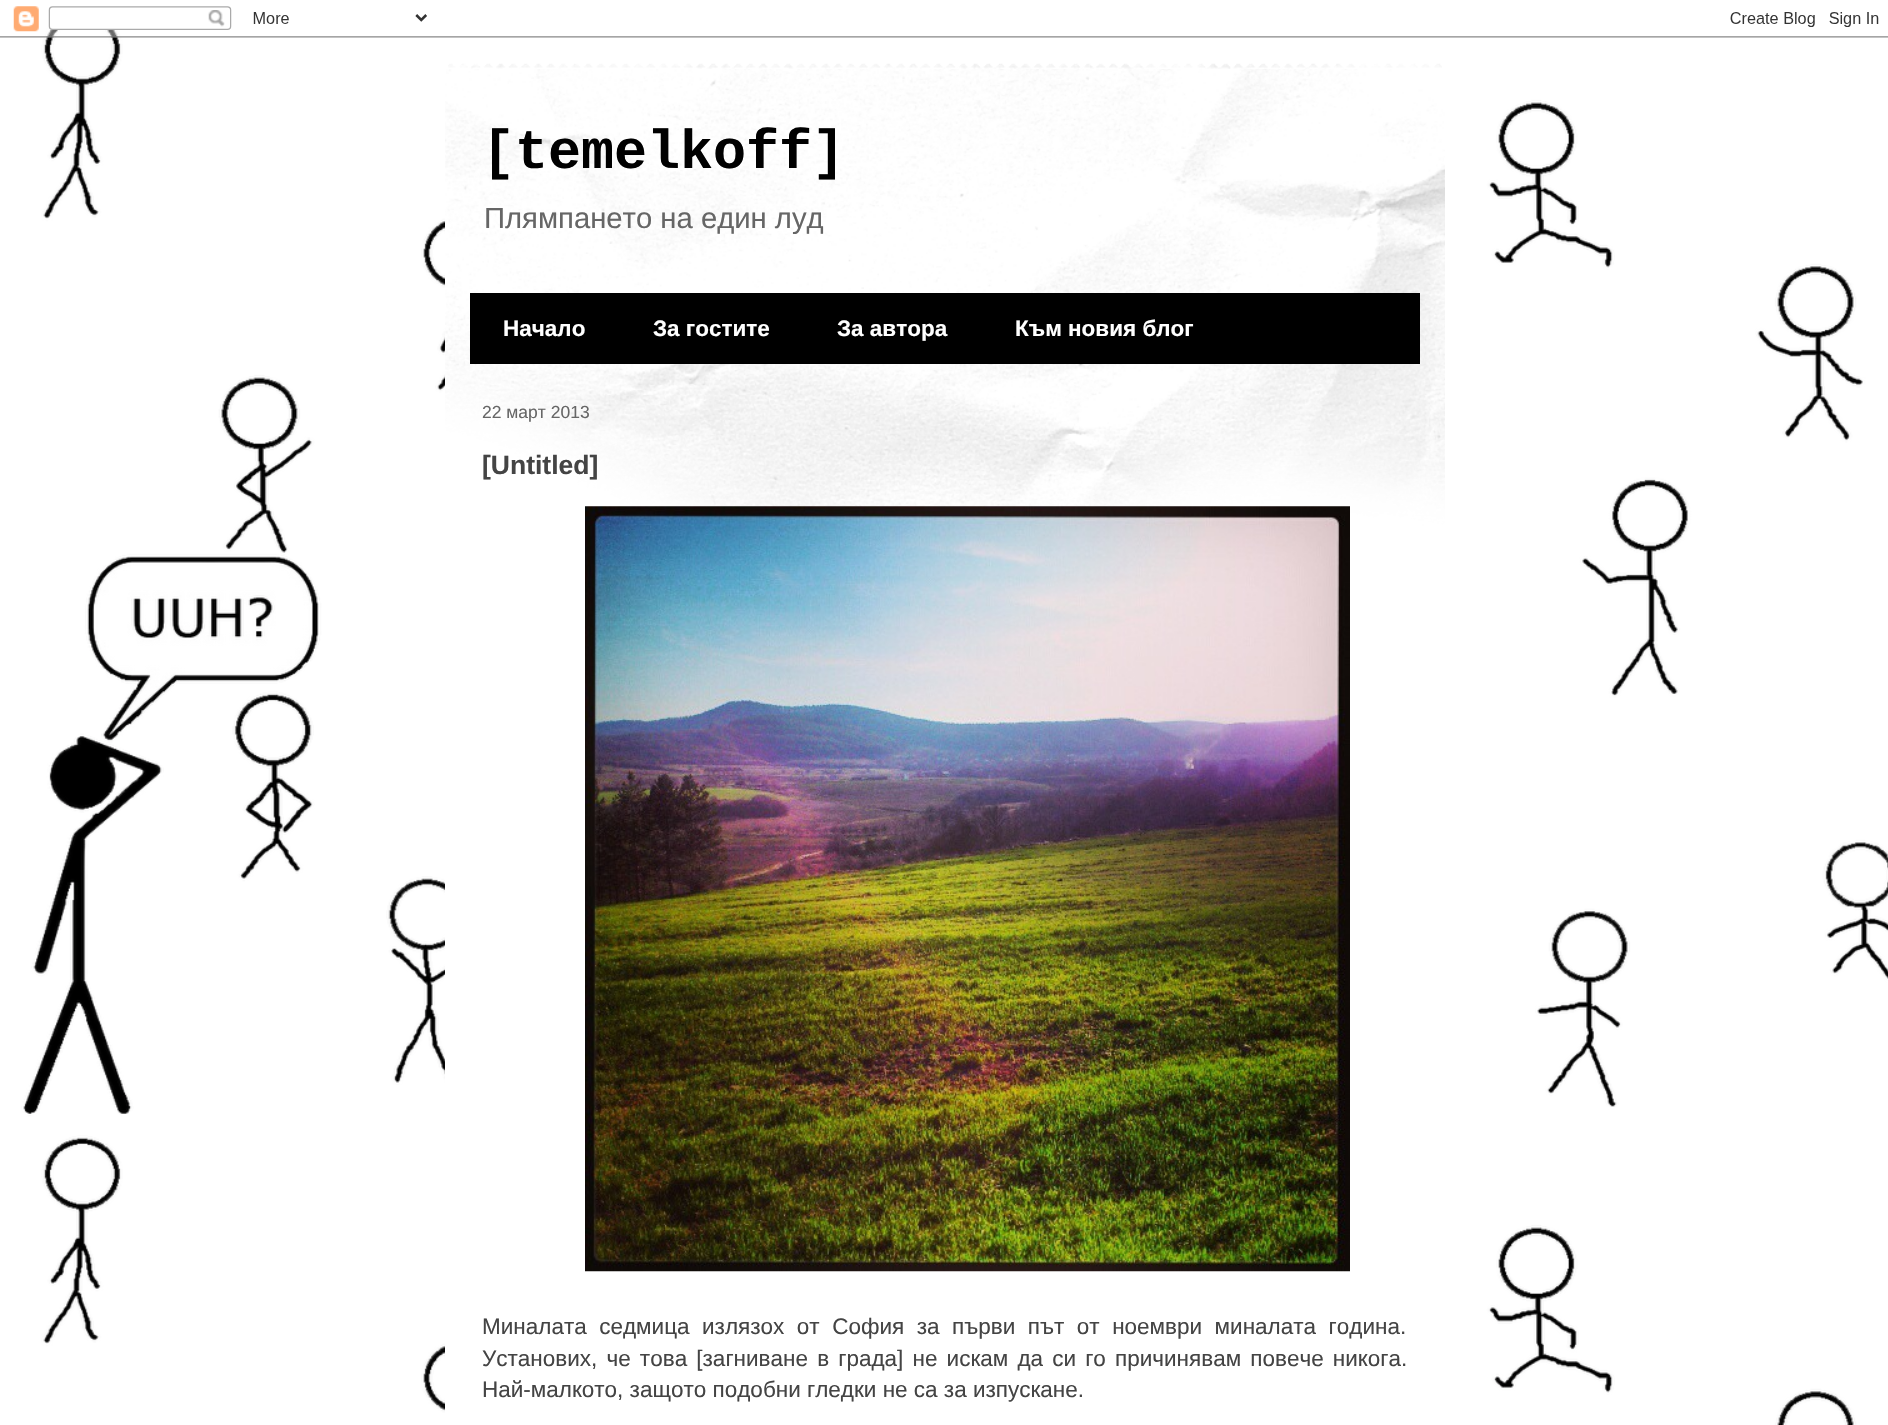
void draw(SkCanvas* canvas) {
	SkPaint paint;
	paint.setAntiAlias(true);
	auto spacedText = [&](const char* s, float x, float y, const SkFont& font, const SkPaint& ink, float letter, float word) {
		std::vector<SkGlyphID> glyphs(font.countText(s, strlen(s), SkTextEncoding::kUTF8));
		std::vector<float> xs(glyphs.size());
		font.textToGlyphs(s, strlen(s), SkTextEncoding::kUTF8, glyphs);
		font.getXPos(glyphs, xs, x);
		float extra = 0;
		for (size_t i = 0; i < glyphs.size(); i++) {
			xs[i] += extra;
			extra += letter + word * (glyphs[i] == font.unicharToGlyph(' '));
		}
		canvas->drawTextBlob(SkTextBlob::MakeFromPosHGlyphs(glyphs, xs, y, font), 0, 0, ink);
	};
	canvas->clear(0xffffffff);
	canvas->drawImageRect(SkImages::DeferredFromEncodedData(SkData::MakeFromFileName("img1.png")), SkRect::MakeXYWH(0, 0, 1888, 1425), SkSamplingOptions());
	canvas->drawImageRect(SkImages::DeferredFromEncodedData(SkData::MakeFromFileName("img2.png")), SkRect::MakeXYWH(0, 6, 1888, 32), SkSamplingOptions());
	canvas->drawImageRect(SkImages::DeferredFromEncodedData(SkData::MakeFromFileName("img3.png")), SkRect::MakeXYWH(448, 63, 994, 6), SkSamplingOptions());
	paint.setColor(0xffffffff);
	canvas->drawRect(SkRect::MakeXYWH(445, 215, 69, 1210), paint);
	canvas->drawImageRect(SkImages::DeferredFromEncodedData(SkData::MakeFromFileName("img4.png")), SkRect::MakeXYWH(445, 69, 1000, 460), SkSamplingOptions());
	SkFont f1(fontMgr->matchFamilyStyle("Liberation Mono", SkFontStyle::Bold()), 55);
	f1.setSubpixel(true);
	paint.setColor(0xff000000);
	canvas->drawString("[temelkoff]", 482, 168, f1, paint);
	SkFont f2(fontMgr->matchFamilyStyle("Liberation Sans", SkFontStyle::Normal()), 29.25);
	f2.setSubpixel(true);
	paint.setColor(0xff666666);
	canvas->drawString("Плямпането на един луд", 484, 228, f2, paint);
	paint.setColor(0xff000000);
	canvas->drawRect(SkRect::MakeXYWH(470, 293, 950, 71), paint);
	SkFont f3(fontMgr->matchFamilyStyle("Liberation Sans", SkFontStyle::Bold()), 22.5);
	f3.setSubpixel(true);
	paint.setColor(0xffffffff);
	canvas->drawString("Начало", 503, 336, f3, paint);
	canvas->drawString("За гостите", 653, 336, f3, paint);
	canvas->drawString("За автора", 837, 336, f3, paint);
	canvas->drawString("Към новия блог", 1015, 336, f3, paint);
	SkFont f4(fontMgr->matchFamilyStyle("Liberation Sans", SkFontStyle::Normal()), 17.5);
	f4.setSubpixel(true);
	paint.setColor(0xff666666);
	canvas->drawString("22 март 2013", 482, 418, f4, paint);
	SkFont f5(fontMgr->matchFamilyStyle("Liberation Sans", SkFontStyle::Bold()), 26.5);
	f5.setSubpixel(true);
	paint.setColor(0xff444444);
	canvas->drawString("[Untitled]", 482, 474, f5, paint);
	canvas->drawImageRect(SkImages::DeferredFromEncodedData(SkData::MakeFromFileName("img5.png")), SkRect::MakeXYWH(585, 506, 765, 766), SkSamplingOptions());
	SkFont f6(fontMgr->matchFamilyStyle("Liberation Sans", SkFontStyle::Normal()), 22.5);
	f6.setSubpixel(true);
	spacedText("Миналата седмица излязох от София за първи път от ноември миналата година.", 482, 1334, f6, paint, 0, 6.25);
	spacedText("Установих, че това [загниване в града] не искам да си го причинявам повече никога.", 482, 1366, f6, paint, 0, 2.9);
	canvas->drawString("Най-малкото, защото подобни гледки не са за изпускане.", 482, 1397, f6, paint);
}
